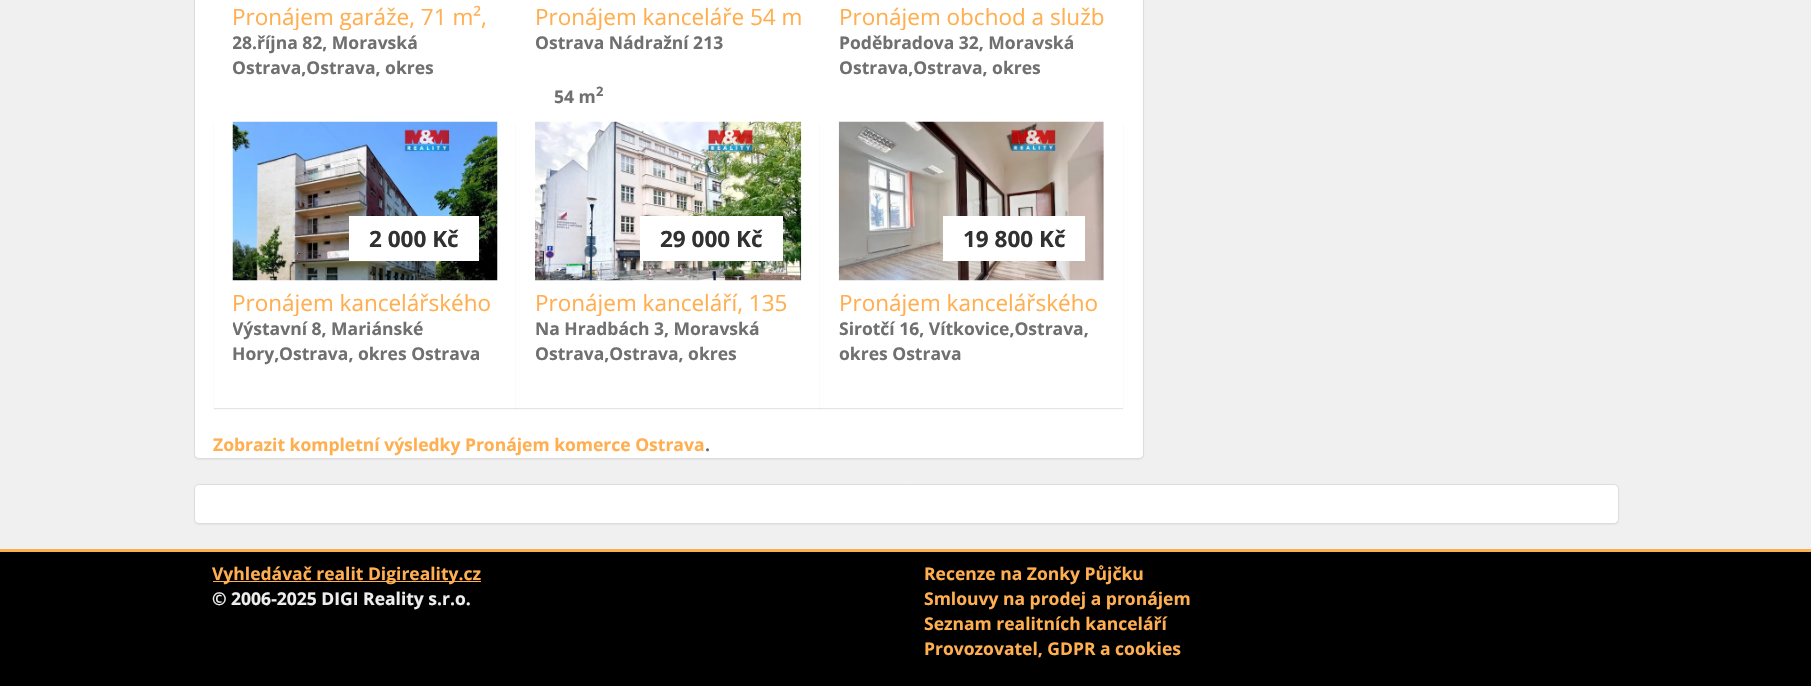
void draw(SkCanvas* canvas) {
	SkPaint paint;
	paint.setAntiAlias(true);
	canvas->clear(0xfff0f0f0);
	paint.setColor(0x0d000000);
	paint.setMaskFilter(SkMaskFilter::MakeBlur(kNormal_SkBlurStyle, 0.5));
	canvas->drawRoundRect(SkRect::MakeXYWH(194, -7, 950, 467), 5, 5, paint);
	paint.setMaskFilter(nullptr);
	paint.setColor(0xffffffff);
	canvas->drawRoundRect(SkRect::MakeXYWH(194.5, -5.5, 949, 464), 4.5, 4.5, paint);
	paint.setStroke(true);
	paint.setStrokeWidth(1);
	paint.setColor(0xffdddddd);
	canvas->drawRoundRect(SkRect::MakeXYWH(194.5, -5.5, 949, 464), 4.5, 4.5, paint);
	canvas->save();
	canvas->clipRect(SkRect::MakeXYWH(233, 0, 265, 30));
	SkFont f1(fontMgr->matchFamilyStyle("Open Sans", SkFontStyle::Normal()), 22.5);
	f1.setSubpixel(true);
	paint.setStroke(false);
	paint.setColor(0xffffaf50);
	canvas->drawString("Pronájem garáže, 71 m²,", 232, 25, f1, paint);
	canvas->restore();
	canvas->save();
	canvas->clipRect(SkRect::MakeXYWH(233, 30, 265, 50));
	SkFont f2(fontMgr->matchFamilyStyle("Open Sans", SkFontStyle::Bold()), 17.5);
	f2.setSubpixel(true);
	paint.setColor(0xff707070);
	canvas->drawString("28.října 82, Moravská", 232, 49, f2, paint);
	canvas->restore();
	canvas->drawString("Ostrava,Ostrava, okres", 232, 74, f2, paint);
	canvas->save();
	canvas->clipRect(SkRect::MakeXYWH(535, 0, 266, 30));
	paint.setColor(0xffffaf50);
	canvas->drawString("Pronájem kanceláře 54 m", 535, 25, f1, paint);
	canvas->restore();
	paint.setColor(0xff707070);
	canvas->drawString("Ostrava Nádražní 213", 535, 49, f2, paint);
	canvas->drawString("54 m", 554, 103, f2, paint);
	SkFont f3(fontMgr->matchFamilyStyle("Open Sans", SkFontStyle::Bold()), 13);
	f3.setSubpixel(true);
	canvas->drawString("2", 596, 96, f3, paint);
	canvas->save();
	canvas->clipRect(SkRect::MakeXYWH(839, 0, 265, 30));
	paint.setColor(0xffffaf50);
	canvas->drawString("Pronájem obchod a služb", 839, 25, f1, paint);
	canvas->restore();
	paint.setColor(0xff707070);
	canvas->drawString("Poděbradova 32, Moravská", 839, 49, f2, paint);
	canvas->drawString("Ostrava,Ostrava, okres", 839, 74, f2, paint);
	paint.setColor(0x1a000000);
	paint.setMaskFilter(SkMaskFilter::MakeBlur(kNormal_SkBlurStyle, 0.5));
	canvas->drawRect(SkRect::MakeXYWH(214, 123, 302, 286), paint);
	paint.setMaskFilter(nullptr);
	paint.setColor(0xffffffff);
	canvas->drawRect(SkRect::MakeXYWH(214, 122, 302, 286), paint);
	canvas->drawImageRect(SkImages::DeferredFromEncodedData(SkData::MakeFromFileName("img1.png")), SkRect::MakeXYWH(232, 121, 266, 160), SkSamplingOptions());
	canvas->drawRect(SkRect::MakeXYWH(349, 216, 130, 45), paint);
	SkFont f4(fontMgr->matchFamilyStyle("Open Sans", SkFontStyle::Bold()), 22.5);
	f4.setSubpixel(true);
	paint.setColor(0xff313131);
	canvas->drawString("2 000 Kč", 369, 247, f4, paint);
	canvas->save();
	canvas->clipRect(SkRect::MakeXYWH(233, 286, 265, 30));
	paint.setColor(0xffffaf50);
	canvas->drawString("Pronájem kancelářského", 232, 311, f1, paint);
	canvas->restore();
	canvas->save();
	canvas->clipRect(SkRect::MakeXYWH(233, 316, 265, 50));
	paint.setColor(0xff707070);
	canvas->drawString("Výstavní 8, Mariánské", 232, 335, f2, paint);
	canvas->restore();
	canvas->drawString("Hory,Ostrava, okres Ostrava", 232, 360, f2, paint);
	paint.setColor(0x1a000000);
	paint.setMaskFilter(SkMaskFilter::MakeBlur(kNormal_SkBlurStyle, 0.5));
	canvas->drawRect(SkRect::MakeXYWH(516, 123, 304, 286), paint);
	paint.setMaskFilter(nullptr);
	paint.setColor(0xffffffff);
	canvas->drawRect(SkRect::MakeXYWH(516, 122, 304, 286), paint);
	canvas->drawImageRect(SkImages::DeferredFromEncodedData(SkData::MakeFromFileName("img2.png")), SkRect::MakeXYWH(535, 121, 267, 160), SkSamplingOptions());
	canvas->drawRect(SkRect::MakeXYWH(640, 216, 143, 45), paint);
	paint.setColor(0xff313131);
	canvas->drawString("29 000 Kč", 660, 247, f4, paint);
	canvas->save();
	canvas->clipRect(SkRect::MakeXYWH(535, 286, 266, 30));
	paint.setColor(0xffffaf50);
	canvas->drawString("Pronájem kanceláří, 135", 535, 311, f1, paint);
	canvas->restore();
	paint.setColor(0xff707070);
	canvas->drawString("Na Hradbách 3, Moravská", 535, 335, f2, paint);
	canvas->drawString("Ostrava,Ostrava, okres", 535, 360, f2, paint);
	paint.setColor(0x1a000000);
	paint.setMaskFilter(SkMaskFilter::MakeBlur(kNormal_SkBlurStyle, 0.5));
	canvas->drawRect(SkRect::MakeXYWH(820, 123, 303, 286), paint);
	paint.setMaskFilter(nullptr);
	paint.setColor(0xffffffff);
	canvas->drawRect(SkRect::MakeXYWH(820, 122, 303, 286), paint);
	canvas->drawImageRect(SkImages::DeferredFromEncodedData(SkData::MakeFromFileName("img3.png")), SkRect::MakeXYWH(838, 121, 266, 160), SkSamplingOptions());
	canvas->drawRect(SkRect::MakeXYWH(943, 216, 142, 45), paint);
	paint.setColor(0xff313131);
	canvas->drawString("19 800 Kč", 963, 247, f4, paint);
	canvas->save();
	canvas->clipRect(SkRect::MakeXYWH(839, 286, 265, 30));
	paint.setColor(0xffffaf50);
	canvas->drawString("Pronájem kancelářského", 839, 311, f1, paint);
	canvas->restore();
	paint.setColor(0xff707070);
	canvas->drawString("Sirotčí 16, Vítkovice,Ostrava,", 839, 335, f2, paint);
	canvas->drawString("okres Ostrava", 839, 360, f2, paint);
	paint.setColor(0xffffaf50);
	canvas->drawString("Zobrazit kompletní výsledky Pronájem komerce Ostrava", 213, 451, f2, paint);
	paint.setColor(0xff707070);
	canvas->drawString(".", 705, 451, f2, paint);
	paint.setColor(0x0d000000);
	paint.setMaskFilter(SkMaskFilter::MakeBlur(kNormal_SkBlurStyle, 0.5));
	canvas->drawRoundRect(SkRect::MakeXYWH(194, 485, 1425, 40), 5, 5, paint);
	paint.setMaskFilter(nullptr);
	paint.setColor(0xffffffff);
	canvas->drawRoundRect(SkRect::MakeXYWH(194.5, 484.5, 1424, 39), 4.5, 4.5, paint);
	paint.setStroke(true);
	paint.setColor(0xffdddddd);
	canvas->drawRoundRect(SkRect::MakeXYWH(194.5, 484.5, 1424, 39), 4.5, 4.5, paint);
	paint.setStroke(false);
	paint.setColor(0xff000000);
	canvas->drawRect(SkRect::MakeXYWH(0, 552, 1811, 134), paint);
	paint.setColor(0xffffaf50);
	canvas->drawRect(SkRect::MakeXYWH(0, 549, 1811, 3), paint);
	canvas->drawRect(SkRect::MakeXYWH(213, 581, 268, 1), paint);
	canvas->drawString("Vyhledávač realit Digireality.cz", 212, 580, f2, paint);
	paint.setColor(0xffeeeeee);
	canvas->drawString("© 2006-2025 DIGI Reality s.r.o.", 212, 605, f2, paint);
	paint.setColor(0xffffaf50);
	canvas->drawString("Recenze na Zonky Půjčku", 924, 580, f2, paint);
	canvas->drawString("Smlouvy na prodej a pronájem", 924, 605, f2, paint);
	canvas->drawString("Seznam realitních kanceláří", 924, 630, f2, paint);
	canvas->drawString("Provozovatel, GDPR a cookies", 924, 655, f2, paint);
}
